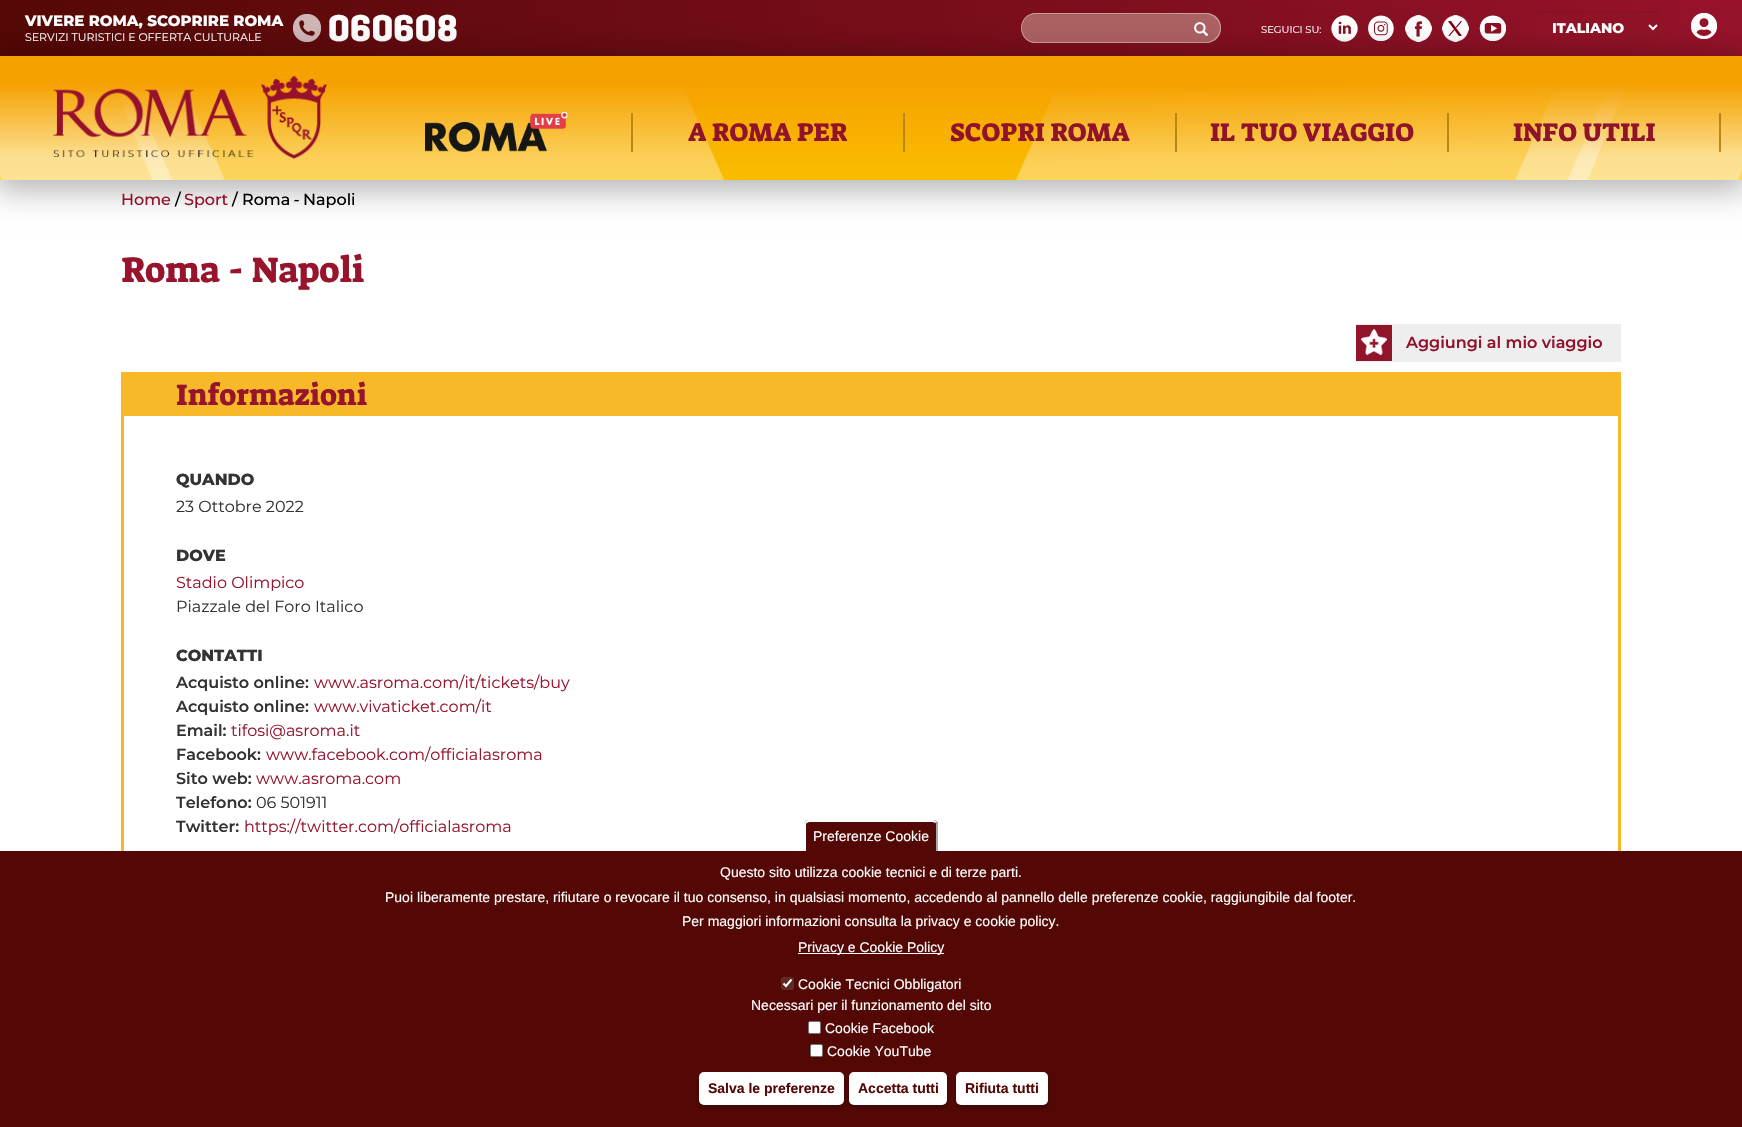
void draw(SkCanvas* canvas) {
	SkPaint paint;
	paint.setAntiAlias(true);
	auto spacedText = [&](const char* s, float x, float y, const SkFont& font, const SkPaint& ink, float letter, float word) {
		std::vector<SkGlyphID> glyphs(font.countText(s, strlen(s), SkTextEncoding::kUTF8));
		std::vector<float> xs(glyphs.size());
		font.textToGlyphs(s, strlen(s), SkTextEncoding::kUTF8, glyphs);
		font.getXPos(glyphs, xs, x);
		float extra = 0;
		for (size_t i = 0; i < glyphs.size(); i++) {
			xs[i] += extra;
			extra += letter + word * (glyphs[i] == font.unicharToGlyph(' '));
		}
		canvas->drawTextBlob(SkTextBlob::MakeFromPosHGlyphs(glyphs, xs, y, font), 0, 0, ink);
	};
	auto svgPath = [&](const char* data, bool evenOdd = false) {
		SkPath result = *SkParsePath::FromSVGString(data);
		if (evenOdd) result.setFillType(SkPathFillType::kEvenOdd);
		return result;
	};
	canvas->clear(0xffffffff);
	{
		const SkColor colors[] = {0xff540805, 0xff97122b};
		const float stops[] = {0, 1};
		const SkPoint ends[] = {{0, 28}, {1742, 28}};
		paint.setShader(SkGradientShader::MakeLinear(ends, colors, stops, 2, SkTileMode::kClamp));
		paint.setAlpha(255);
	}
	canvas->drawRect(SkRect::MakeXYWH(0, 0, 1742, 56), paint);
	SkFont f1(fontMgr->matchFamilyStyle("Montserrat", SkFontStyle(800, SkFontStyle::kNormal_Width, SkFontStyle::kUpright_Slant)), 15);
	f1.setSubpixel(true);
	paint.setShader(nullptr);
	paint.setColor(0xffffffff);
	canvas->drawString("VIVERE ROMA, SCOPRIRE ROMA", 25, 26, f1, paint);
	SkFont f2(fontMgr->matchFamilyStyle("Montserrat", SkFontStyle::Normal()), 11);
	f2.setSubpixel(true);
	canvas->drawString("SERVIZI TURISTICI E OFFERTA CULTURALE", 25, 41, f2, paint);
	canvas->drawImageRect(SkImages::DeferredFromEncodedData(SkData::MakeFromFileName("img1.png")), SkRect::MakeXYWH(293, 14, 28, 28), SkSamplingOptions());
	SkFont f3(fontMgr->matchFamilyStyle("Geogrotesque", SkFontStyle::Bold()), 38);
	f3.setSubpixel(true);
	canvas->drawString("060608", 328, 41, f3, paint);
	paint.setColor(0xffad6163);
	canvas->drawPath(svgPath("M1036 13H1183V43H1036C1027.5 43 1021 36.5 1021 28C1021 19.5 1027.5 13 1036 13Z"), paint);
	paint.setColor(0xffa05a5c);
	canvas->drawPath(svgPath("M1036 15H1183V14H1060C1050 14 1021 8 1022 28C1022 21 1028 15 1036 15Z"), paint);
	paint.setColor(0xffcca09f);
	canvas->drawPath(svgPath("M1036 13H1183V43H1033C1016 39 1018 13 1036 13ZM1036 14H1183V42H1036C1028 42 1022 36 1022 28C1022 20 1028 14 1036 14Z", true), paint);
	paint.setColor(0xffad6163);
	canvas->drawPath(svgPath("M1182 13H1206C1214.5 13 1221 19.5 1221 28C1221 36.5 1214.5 43 1206 43H1182Z"), paint);
	paint.setColor(0xffcca09f);
	canvas->drawPath(svgPath("M1182 13H1206C1214.5 13 1221 19.5 1221 28C1221 36.5 1214.5 43 1206 43H1182ZM1182 14H1206C1213.5 14 1220 20.5 1220 28C1220 35.5 1213.5 42 1206 42H1182Z", true), paint);
	canvas->drawImageRect(SkImages::DeferredFromEncodedData(SkData::MakeFromFileName("img2.png")), SkRect::MakeXYWH(1194, 22, 15, 14), SkSamplingOptions());
	SkFont f4(fontMgr->matchFamilyStyle("Montserrat", SkFontStyle::Normal()), 10);
	f4.setSubpixel(true);
	paint.setColor(0xffffffff);
	canvas->drawString("SEGUICI SU:", 1261, 33, f4, paint);
	canvas->drawImageRect(SkImages::DeferredFromEncodedData(SkData::MakeFromFileName("img3.png")), SkRect::MakeXYWH(1331, 15, 27, 27), SkSamplingOptions());
	canvas->drawImageRect(SkImages::DeferredFromEncodedData(SkData::MakeFromFileName("img4.png")), SkRect::MakeXYWH(1368, 15, 26, 26), SkSamplingOptions());
	canvas->drawImageRect(SkImages::DeferredFromEncodedData(SkData::MakeFromFileName("img5.png")), SkRect::MakeXYWH(1405, 15, 27, 27), SkSamplingOptions());
	canvas->drawImageRect(SkImages::DeferredFromEncodedData(SkData::MakeFromFileName("img6.png")), SkRect::MakeXYWH(1442, 15, 27, 27), SkSamplingOptions());
	canvas->drawImageRect(SkImages::DeferredFromEncodedData(SkData::MakeFromFileName("img7.png")), SkRect::MakeXYWH(1479, 15, 27, 26), SkSamplingOptions());
	paint.setColor(0xff911226);
	canvas->drawRoundRect(SkRect::MakeXYWH(1536, 12, 125, 30), 4, 4, paint);
	paint.setColor(0x12000000);
	canvas->drawPath(svgPath("M1540 13H1657C1659 13 1661 15 1661 17C1661 7 1640 12 1638 12H1560C1557 12 1536 7 1536 17C1536 15 1538 13 1540 13Z"), paint);
	paint.setStroke(true);
	paint.setStrokeWidth(2);
	paint.setColor(0xffffffff);
	canvas->drawPath(svgPath("M1649 25L1653 29L1657 25"), paint);
	SkFont f5(fontMgr->matchFamilyStyle("Montserrat", SkFontStyle(800, SkFontStyle::kNormal_Width, SkFontStyle::kUpright_Slant)), 14);
	f5.setSubpixel(true);
	paint.setStroke(false);
	canvas->drawString("ITALIANO", 1552, 33, f5, paint);
	canvas->drawImageRect(SkImages::DeferredFromEncodedData(SkData::MakeFromFileName("img8.png")), SkRect::MakeXYWH(1691, 13, 26, 26), SkSamplingOptions());
	paint.setColor(0x4d000000);
	paint.setMaskFilter(SkMaskFilter::MakeBlur(kNormal_SkBlurStyle, 15));
	canvas->drawRect(SkRect::MakeXYWH(-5, 56, 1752, 134), paint);
	paint.setMaskFilter(nullptr);
	paint.setColor(0xfff5a100);
	canvas->drawRect(SkRect::MakeXYWH(0, 56, 1742, 28), paint);
	canvas->drawImageRect(SkImages::DeferredFromEncodedData(SkData::MakeFromFileName("img9.png")), SkRect::MakeXYWH(0, 84, 1742, 96), SkSamplingOptions());
	canvas->drawImageRect(SkImages::DeferredFromEncodedData(SkData::MakeFromFileName("img10.png")), SkRect::MakeXYWH(53, 76, 274, 83), SkSamplingOptions());
	canvas->drawImageRect(SkImages::DeferredFromEncodedData(SkData::MakeFromFileName("img11.png")), SkRect::MakeXYWH(425, 112, 143, 40), SkSamplingOptions());
	paint.setColor(0xffb98715);
	canvas->drawRect(SkRect::MakeXYWH(903, 113, 2, 39), paint);
	canvas->drawRect(SkRect::MakeXYWH(631, 113, 2, 39), paint);
	SkFont f6(fontMgr->matchFamilyStyle("Suez One", SkFontStyle::Normal()), 26);
	f6.setSubpixel(true);
	paint.setColor(0xff91132b);
	canvas->drawString("A ROMA PER", 688, 141, f6, paint);
	paint.setColor(0xffb98715);
	canvas->drawRect(SkRect::MakeXYWH(1175, 113, 2, 39), paint);
	paint.setColor(0xff91132b);
	canvas->drawString("SCOPRI ROMA", 950, 141, f6, paint);
	paint.setColor(0xffb98715);
	canvas->drawRect(SkRect::MakeXYWH(1447, 113, 2, 39), paint);
	paint.setColor(0xff91132b);
	canvas->drawString("IL TUO VIAGGIO", 1210, 141, f6, paint);
	paint.setColor(0xffb98715);
	canvas->drawRect(SkRect::MakeXYWH(1719, 113, 2, 39), paint);
	paint.setColor(0xff91132b);
	canvas->drawString("INFO UTILI", 1513, 141, f6, paint);
	SkFont f7(fontMgr->matchFamilyStyle("Montserrat", SkFontStyle(500, SkFontStyle::kNormal_Width, SkFontStyle::kUpright_Slant)), 16);
	f7.setSubpixel(true);
	canvas->drawString("Home", 121, 205, f7, paint);
	paint.setColor(0xff000000);
	canvas->drawString("/", 175, 205, f7, paint);
	paint.setColor(0xff91132b);
	canvas->drawString("Sport", 184, 205, f7, paint);
	paint.setColor(0xff000000);
	canvas->drawString("/", 232, 205, f7, paint);
	spacedText("Roma - Napoli", 242, 205, f7, paint, 0, -1);
	SkFont f8(fontMgr->matchFamilyStyle("Suez One", SkFontStyle::Normal()), 36);
	f8.setSubpixel(true);
	paint.setColor(0xff98132c);
	canvas->drawString("Roma - Napoli", 121, 282, f8, paint);
	paint.setColor(0xffeeeeee);
	canvas->drawRect(SkRect::MakeXYWH(1356, 324, 265, 38), paint);
	canvas->drawImageRect(SkImages::DeferredFromEncodedData(SkData::MakeFromFileName("img12.png")), SkRect::MakeXYWH(1356, 325, 36, 36), SkSamplingOptions());
	SkFont f9(fontMgr->matchFamilyStyle("Montserrat", SkFontStyle(600, SkFontStyle::kNormal_Width, SkFontStyle::kUpright_Slant)), 16);
	f9.setSubpixel(true);
	paint.setColor(0xff91132b);
	canvas->drawString("Aggiungi al mio viaggio", 1406, 348, f9, paint);
	paint.setStroke(true);
	paint.setStrokeWidth(3);
	paint.setColor(0xfff8b929);
	canvas->drawRect(SkRect::MakeXYWH(122.5, 373.5, 1497, 630), paint);
	paint.setStroke(false);
	canvas->drawRect(SkRect::MakeXYWH(124, 375, 1494, 41), paint);
	SkFont f10(fontMgr->matchFamilyStyle("Suez One", SkFontStyle::Normal()), 30);
	f10.setSubpixel(true);
	paint.setColor(0xff98132c);
	canvas->drawString("Informazioni", 176, 405, f10, paint);
	SkFont f11(fontMgr->matchFamilyStyle("Montserrat", SkFontStyle(800, SkFontStyle::kNormal_Width, SkFontStyle::kUpright_Slant)), 16);
	f11.setSubpixel(true);
	paint.setColor(0xff333333);
	canvas->drawString("QUANDO", 176, 485, f11, paint);
	SkFont f12(fontMgr->matchFamilyStyle("Montserrat", SkFontStyle::Normal()), 16);
	f12.setSubpixel(true);
	canvas->drawString("23 Ottobre 2022", 176, 512, f12, paint);
	canvas->drawString("DOVE", 176, 561, f11, paint);
	paint.setColor(0xff98132c);
	canvas->drawString("Stadio Olimpico", 176, 588, f12, paint);
	paint.setColor(0xff333333);
	canvas->drawString("Piazzale del Foro Italico", 176, 612, f12, paint);
	canvas->drawString("CONTATTI", 176, 661, f11, paint);
	canvas->drawString("Acquisto online:", 176, 688, f9, paint);
	paint.setColor(0xff98132c);
	canvas->drawString("www.asroma.com/it/tickets/buy", 314, 688, f12, paint);
	paint.setColor(0xff333333);
	canvas->drawString("Acquisto online:", 176, 712, f9, paint);
	paint.setColor(0xff98132c);
	canvas->drawString("www.vivaticket.com/it", 314, 712, f12, paint);
	paint.setColor(0xff333333);
	canvas->drawString("Email:", 176, 736, f9, paint);
	paint.setColor(0xff98132c);
	canvas->drawString("tifosi@asroma.it", 231, 736, f12, paint);
	paint.setColor(0xff333333);
	canvas->drawString("Facebook:", 176, 760, f9, paint);
	paint.setColor(0xff98132c);
	canvas->drawString("www.facebook.com/officialasroma", 266, 760, f12, paint);
	paint.setColor(0xff333333);
	canvas->drawString("Sito web:", 176, 784, f9, paint);
	paint.setColor(0xff98132c);
	canvas->drawString("www.asroma.com", 256, 784, f12, paint);
	paint.setColor(0xff333333);
	canvas->drawString("Telefono:", 176, 808, f9, paint);
	canvas->drawString("06 501911", 256, 808, f12, paint);
	canvas->drawString("Twitter:", 176, 832, f9, paint);
	paint.setColor(0xff98132c);
	canvas->drawString("https://twitter.com/officialasroma", 244, 832, f12, paint);
	paint.setColor(0xff540805);
	canvas->drawRect(SkRect::MakeXYWH(0, 851, 1742, 276), paint);
	canvas->drawPath(svgPath("M809 820H933C936 820 938 822 938 825V851H804V825C804 822 806 820 809 820Z"), paint);
	paint.setColor(0xffffffff);
	canvas->drawPath(svgPath("M809 820C808 820 806 820 805 821L807 823L809 822H933L935 823L937 821C936 821 935 820 933 820Z"), paint);
	paint.setColor(0xffaaaaaa);
	canvas->drawPath(svgPath("M936 851H938V825C938 823.5 937.5 822.5 936.5 821.5L935.5 823C936 823.5 936 824 936 825Z"), paint);
	paint.setColor(0xffffffff);
	canvas->drawPath(svgPath("M804 851V824.5C804 823 804.5 822 805.5 821.5L807 822.5C806.5 823 806 824 806 825V851Z"), paint);
	SkFont f13(fontMgr->matchFamilyStyle("Liberation Sans", SkFontStyle::Normal()), 14);
	f13.setSubpixel(true);
	canvas->drawString("Preferenze Cookie", 813, 841, f13, paint);
	canvas->drawString("Questo sito utilizza cookie tecnici e di terze parti.", 720, 877, f13, paint);
	canvas->drawString("Puoi liberamente prestare, rifiutare o revocare il tuo consenso, in qualsiasi momento, accedendo al pannello delle preferenze cookie, raggiungibile dal footer.", 385, 902, f13, paint);
	canvas->drawString("Per maggiori informazioni consulta la privacy e cookie policy.", 682, 926, f13, paint);
	canvas->drawRect(SkRect::MakeXYWH(798, 953, 146, 1), paint);
	canvas->drawString("Privacy e Cookie Policy", 798, 952, f13, paint);
	paint.setColor(0xff5e2927);
	canvas->drawRoundRect(SkRect::MakeXYWH(781, 977, 13, 13), 2, 2, paint);
	paint.setStroke(true);
	paint.setStrokeWidth(2.1);
	paint.setColor(0xffffffff);
	canvas->drawPath(svgPath("M783.5 983.5L786 986L791.5 979.5"), paint);
	paint.setStroke(false);
	canvas->drawString("Cookie Tecnici Obbligatori", 798, 989, f13, paint);
	canvas->drawString("Necessari per il funzionamento del sito", 751, 1010, f13, paint);
	canvas->drawRoundRect(SkRect::MakeXYWH(808.5, 1021.5, 12, 12), 1.5, 1.5, paint);
	paint.setStroke(true);
	paint.setStrokeWidth(1);
	paint.setColor(0xff767676);
	canvas->drawRoundRect(SkRect::MakeXYWH(808.5, 1021.5, 12, 12), 1.5, 1.5, paint);
	paint.setStroke(false);
	paint.setColor(0xffffffff);
	canvas->drawString("Cookie Facebook", 825, 1033, f13, paint);
	canvas->drawRoundRect(SkRect::MakeXYWH(810.5, 1044.5, 12, 12), 1.5, 1.5, paint);
	paint.setStroke(true);
	paint.setColor(0xff767676);
	canvas->drawRoundRect(SkRect::MakeXYWH(810.5, 1044.5, 12, 12), 1.5, 1.5, paint);
	paint.setStroke(false);
	paint.setColor(0xffffffff);
	canvas->drawString("Cookie YouTube", 827, 1056, f13, paint);
	paint.setColor(0x4d000000);
	paint.setMaskFilter(SkMaskFilter::MakeBlur(kNormal_SkBlurStyle, 2.5));
	canvas->drawRoundRect(SkRect::MakeXYWH(699, 1075, 145, 33), 5, 5, paint);
	paint.setMaskFilter(nullptr);
	paint.setColor(0xffffffff);
	canvas->drawRoundRect(SkRect::MakeXYWH(699, 1072, 145, 33), 5, 5, paint);
	SkFont f14(fontMgr->matchFamilyStyle("Liberation Sans", SkFontStyle::Bold()), 14);
	f14.setSubpixel(true);
	paint.setColor(0xff540805);
	canvas->drawString("Salva le preferenze", 708, 1093, f14, paint);
	paint.setColor(0x4d000000);
	paint.setMaskFilter(SkMaskFilter::MakeBlur(kNormal_SkBlurStyle, 2.5));
	canvas->drawRoundRect(SkRect::MakeXYWH(849, 1075, 98, 33), 5, 5, paint);
	paint.setMaskFilter(nullptr);
	paint.setColor(0xffffffff);
	canvas->drawRoundRect(SkRect::MakeXYWH(849, 1072, 98, 33), 5, 5, paint);
	paint.setColor(0xff540805);
	canvas->drawString("Accetta tutti", 858, 1093, f14, paint);
	paint.setColor(0x4d000000);
	paint.setMaskFilter(SkMaskFilter::MakeBlur(kNormal_SkBlurStyle, 2.5));
	canvas->drawRoundRect(SkRect::MakeXYWH(956, 1075, 92, 33), 5, 5, paint);
	paint.setMaskFilter(nullptr);
	paint.setColor(0xffffffff);
	canvas->drawRoundRect(SkRect::MakeXYWH(956, 1072, 92, 33), 5, 5, paint);
	paint.setColor(0xff540805);
	canvas->drawString("Rifiuta tutti", 965, 1093, f14, paint);
}
